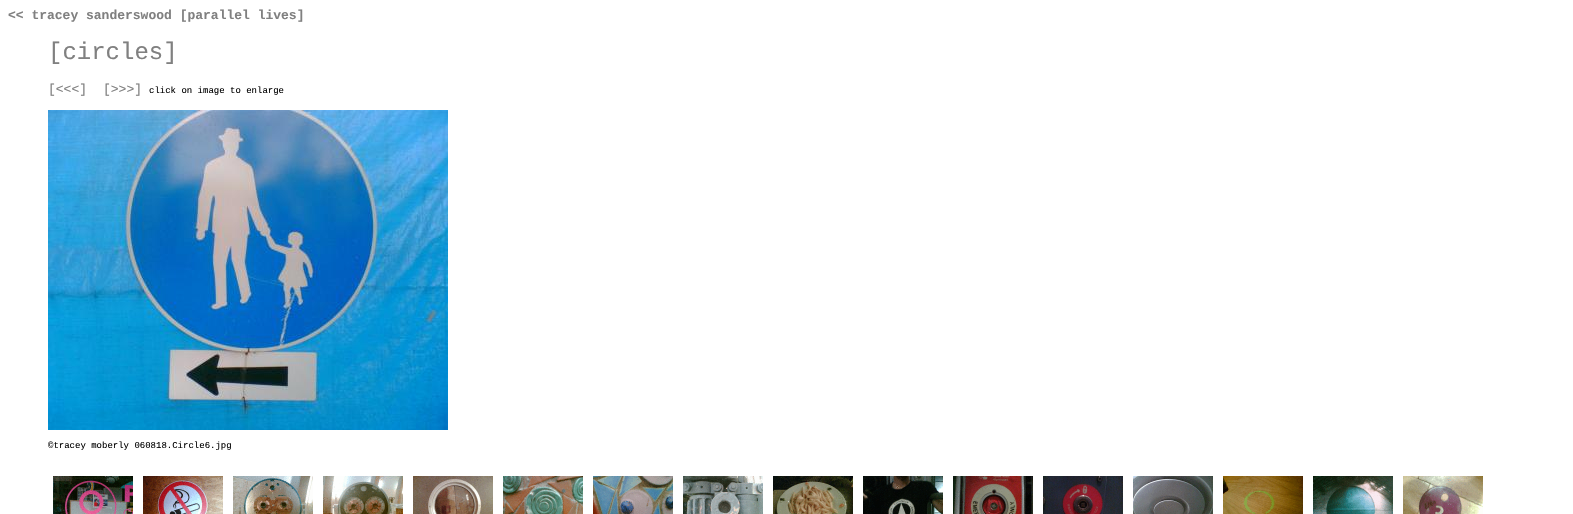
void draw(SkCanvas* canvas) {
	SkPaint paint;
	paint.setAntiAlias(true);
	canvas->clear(0xffffffff);
	SkFont f1(fontMgr->matchFamilyStyle("Liberation Mono", SkFontStyle::Bold()), 13);
	f1.setSubpixel(true);
	paint.setColor(0xff808080);
	canvas->drawString("<< tracey sanderswood [parallel lives]", 8, 19, f1, paint);
	SkFont f2(fontMgr->matchFamilyStyle("Liberation Mono", SkFontStyle::Normal()), 24);
	f2.setSubpixel(true);
	canvas->drawString("[circles]", 48, 59, f2, paint);
	SkFont f3(fontMgr->matchFamilyStyle("Liberation Mono", SkFontStyle::Normal()), 13);
	f3.setSubpixel(true);
	canvas->drawString("[<<<]", 48, 93, f3, paint);
	canvas->drawString("[>>>]", 103, 93, f3, paint);
	SkFont f4(fontMgr->matchFamilyStyle("Liberation Mono", SkFontStyle::Normal()), 9);
	f4.setSubpixel(true);
	paint.setColor(0xff000000);
	canvas->drawString("click on image to enlarge", 149, 93, f4, paint);
	canvas->drawImageRect(SkImages::DeferredFromEncodedData(SkData::MakeFromFileName("img1.png")), SkRect::MakeXYWH(48, 110, 400, 320), SkSamplingOptions());
	canvas->drawString("©tracey moberly 060818.Circle6.jpg", 48, 448, f4, paint);
	canvas->drawImageRect(SkImages::DeferredFromEncodedData(SkData::MakeFromFileName("img2.png")), SkRect::MakeXYWH(53, 476, 80, 38), SkSamplingOptions());
	canvas->drawImageRect(SkImages::DeferredFromEncodedData(SkData::MakeFromFileName("img3.png")), SkRect::MakeXYWH(143, 476, 80, 38), SkSamplingOptions());
	canvas->drawImageRect(SkImages::DeferredFromEncodedData(SkData::MakeFromFileName("img4.png")), SkRect::MakeXYWH(233, 476, 80, 38), SkSamplingOptions());
	canvas->drawImageRect(SkImages::DeferredFromEncodedData(SkData::MakeFromFileName("img5.png")), SkRect::MakeXYWH(323, 476, 80, 38), SkSamplingOptions());
	canvas->drawImageRect(SkImages::DeferredFromEncodedData(SkData::MakeFromFileName("img6.png")), SkRect::MakeXYWH(413, 476, 80, 38), SkSamplingOptions());
	canvas->drawImageRect(SkImages::DeferredFromEncodedData(SkData::MakeFromFileName("img7.png")), SkRect::MakeXYWH(503, 476, 80, 38), SkSamplingOptions());
	canvas->drawImageRect(SkImages::DeferredFromEncodedData(SkData::MakeFromFileName("img8.png")), SkRect::MakeXYWH(593, 476, 80, 38), SkSamplingOptions());
	canvas->drawImageRect(SkImages::DeferredFromEncodedData(SkData::MakeFromFileName("img9.png")), SkRect::MakeXYWH(683, 476, 80, 38), SkSamplingOptions());
	canvas->drawImageRect(SkImages::DeferredFromEncodedData(SkData::MakeFromFileName("img10.png")), SkRect::MakeXYWH(773, 476, 80, 38), SkSamplingOptions());
	canvas->drawImageRect(SkImages::DeferredFromEncodedData(SkData::MakeFromFileName("img11.png")), SkRect::MakeXYWH(863, 476, 80, 38), SkSamplingOptions());
	canvas->drawImageRect(SkImages::DeferredFromEncodedData(SkData::MakeFromFileName("img12.png")), SkRect::MakeXYWH(953, 476, 80, 38), SkSamplingOptions());
	canvas->drawImageRect(SkImages::DeferredFromEncodedData(SkData::MakeFromFileName("img13.png")), SkRect::MakeXYWH(1043, 476, 80, 38), SkSamplingOptions());
	canvas->drawImageRect(SkImages::DeferredFromEncodedData(SkData::MakeFromFileName("img14.png")), SkRect::MakeXYWH(1133, 476, 80, 38), SkSamplingOptions());
	canvas->drawImageRect(SkImages::DeferredFromEncodedData(SkData::MakeFromFileName("img15.png")), SkRect::MakeXYWH(1223, 476, 80, 38), SkSamplingOptions());
	canvas->drawImageRect(SkImages::DeferredFromEncodedData(SkData::MakeFromFileName("img16.png")), SkRect::MakeXYWH(1313, 476, 80, 38), SkSamplingOptions());
	canvas->drawImageRect(SkImages::DeferredFromEncodedData(SkData::MakeFromFileName("img17.png")), SkRect::MakeXYWH(1403, 476, 80, 38), SkSamplingOptions());
}
